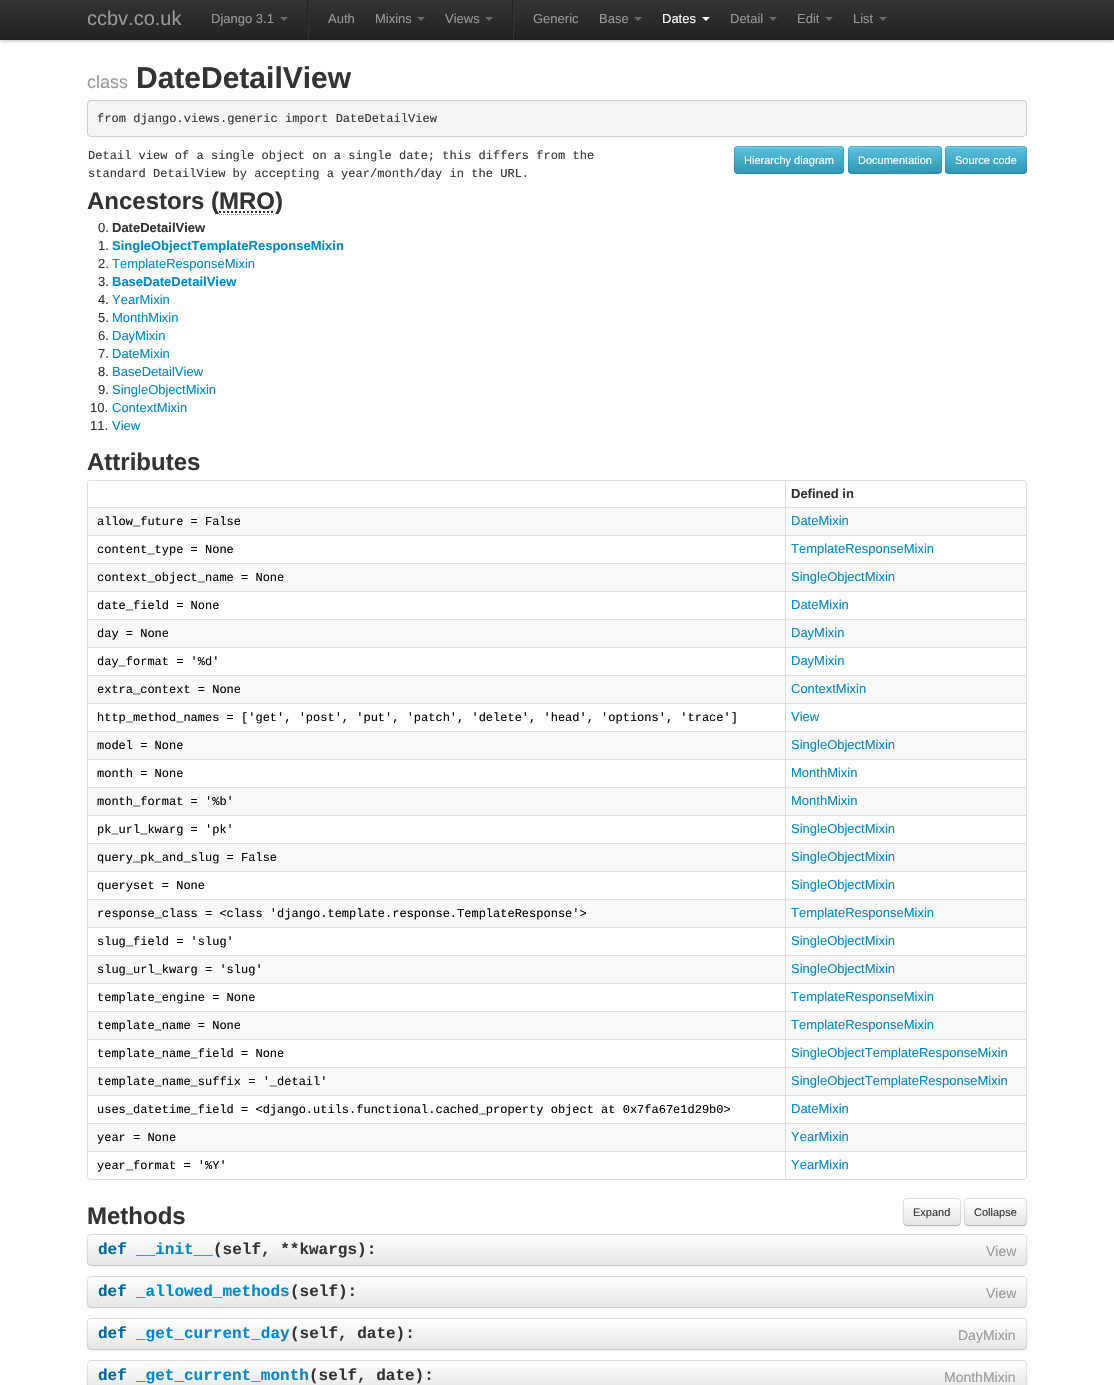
void draw(SkCanvas* canvas) {
	SkPaint paint;
	paint.setAntiAlias(true);
	auto svgPath = [&](const char* data, bool evenOdd = false) {
		SkPath result = *SkParsePath::FromSVGString(data);
		if (evenOdd) result.setFillType(SkPathFillType::kEvenOdd);
		return result;
	};
	canvas->clear(0xffffffff);
	paint.setColor(0x40000000);
	paint.setMaskFilter(SkMaskFilter::MakeBlur(kNormal_SkBlurStyle, 1.5));
	canvas->drawRect(SkRect::MakeXYWH(0, 1, 1114, 40), paint);
	paint.setMaskFilter(nullptr);
	{
		const SkColor colors[] = {0xff333333, 0xff222222};
		const float stops[] = {0, 1};
		const SkPoint ends[] = {{557, 0}, {557, 40}};
		paint.setShader(SkGradientShader::MakeLinear(ends, colors, stops, 2, SkTileMode::kClamp));
		paint.setAlpha(255);
	}
	canvas->drawRect(SkRect::MakeXYWH(0, 0, 1114, 39), paint);
	paint.setShader(nullptr);
	paint.setColor(0xff1f1f1f);
	canvas->drawRect(SkRect::MakeXYWH(0, 39, 1114, 1), paint);
	SkFont f1(fontMgr->matchFamilyStyle("Liberation Sans", SkFontStyle::Normal()), 20);
	f1.setSubpixel(true);
	paint.setColor(0xff999999);
	canvas->drawString("ccbv.co.uk", 87, 25, f1, paint);
	SkFont f2(fontMgr->matchFamilyStyle("Liberation Sans", SkFontStyle::Normal()), 13);
	f2.setSubpixel(true);
	canvas->drawString("Django 3.1", 211, 23, f2, paint);
	paint.setColor(0xff6b6b6b);
	canvas->drawPath(svgPath("M280 17H288L284 21Z"), paint);
	paint.setColor(0xff222222);
	canvas->drawRect(SkRect::MakeXYWH(307, 0, 1, 40), paint);
	paint.setColor(0xff333333);
	canvas->drawRect(SkRect::MakeXYWH(308, 0, 1, 40), paint);
	paint.setColor(0xff999999);
	canvas->drawString("Auth", 328, 23, f2, paint);
	canvas->drawString("Mixins", 375, 23, f2, paint);
	paint.setColor(0xff6b6b6b);
	canvas->drawPath(svgPath("M417 17H425L421 21Z"), paint);
	paint.setColor(0xff999999);
	canvas->drawString("Views", 445, 23, f2, paint);
	paint.setColor(0xff6b6b6b);
	canvas->drawPath(svgPath("M485 17H493L489 21Z"), paint);
	paint.setColor(0xff222222);
	canvas->drawRect(SkRect::MakeXYWH(512, 0, 1, 40), paint);
	paint.setColor(0xff333333);
	canvas->drawRect(SkRect::MakeXYWH(513, 0, 1, 40), paint);
	paint.setColor(0xff999999);
	canvas->drawString("Generic", 533, 23, f2, paint);
	canvas->drawString("Base", 599, 23, f2, paint);
	paint.setColor(0xff6b6b6b);
	canvas->drawPath(svgPath("M634 17H642L638 21Z"), paint);
	paint.setColor(0xffffffff);
	canvas->drawString("Dates", 662, 23, f2, paint);
	canvas->drawPath(svgPath("M702 17H710L706 21Z"), paint);
	paint.setColor(0xff999999);
	canvas->drawString("Detail", 730, 23, f2, paint);
	paint.setColor(0xff6b6b6b);
	canvas->drawPath(svgPath("M769 17H777L773 21Z"), paint);
	paint.setColor(0xff999999);
	canvas->drawString("Edit", 797, 23, f2, paint);
	paint.setColor(0xff6b6b6b);
	canvas->drawPath(svgPath("M825 17H833L829 21Z"), paint);
	paint.setColor(0xff999999);
	canvas->drawString("List", 853, 23, f2, paint);
	paint.setColor(0xff6b6b6b);
	canvas->drawPath(svgPath("M879 17H887L883 21Z"), paint);
	SkFont f3(fontMgr->matchFamilyStyle("Liberation Sans", SkFontStyle::Normal()), 18);
	f3.setSubpixel(true);
	paint.setColor(0xff999999);
	canvas->drawString("class", 87, 88, f3, paint);
	SkFont f4(fontMgr->matchFamilyStyle("Liberation Sans", SkFontStyle::Bold()), 30);
	f4.setSubpixel(true);
	paint.setColor(0xff333333);
	canvas->drawString("DateDetailView", 136, 88, f4, paint);
	paint.setColor(0xfff5f5f5);
	canvas->drawRoundRect(SkRect::MakeXYWH(87, 100, 940, 37), 4, 4, paint);
	paint.setStroke(true);
	paint.setStrokeWidth(1);
	paint.setColor(0x26000000);
	canvas->drawRoundRect(SkRect::MakeXYWH(87.5, 100.5, 939, 36), 3.5, 3.5, paint);
	SkFont f5(fontMgr->matchFamilyStyle("Liberation Mono", SkFontStyle::Normal()), 12.05);
	f5.setSubpixel(true);
	paint.setStroke(false);
	paint.setColor(0xff333333);
	canvas->drawString("from django.views.generic import DateDetailView", 97, 122, f5, paint);
	canvas->drawString("Detail view of a single object on a single date; this differs from the", 88, 159, f5, paint);
	canvas->drawString("standard DetailView by accepting a year/month/day in the URL.", 88, 177, f5, paint);
	paint.setColor(0x0d000000);
	paint.setMaskFilter(SkMaskFilter::MakeBlur(kNormal_SkBlurStyle, 1));
	canvas->drawRoundRect(SkRect::MakeXYWH(734, 147, 110, 28), 4, 4, paint);
	paint.setMaskFilter(nullptr);
	paint.setColor(0xff49afcd);
	canvas->drawRoundRect(SkRect::MakeXYWH(734, 146, 110, 28), 4, 4, paint);
	canvas->save();
	canvas->clipPath(svgPath("M738 146H840C842 146 844 148 844 150V170C844 172 842 174 840 174H738C736 174 734 172 734 170V150C734 148 736 146 738 146Z"), true);
	{
		const SkColor colors[] = {0xff5bc0de, 0xff2f96b4};
		const float stops[] = {0, 1};
		const SkPoint ends[] = {{789, 147}, {789, 173}};
		paint.setShader(SkGradientShader::MakeLinear(ends, colors, stops, 2, SkTileMode::kClamp));
		paint.setAlpha(255);
	}
	canvas->drawRect(SkRect::MakeXYWH(734, 147, 110, 26), paint);
	canvas->restore();
	paint.setShader(nullptr);
	paint.setColor(0x33ffffff);
	canvas->drawPath(svgPath("M738 148H840C842 148 843 149 843 151C843 142 825 147 823 147H755C753 147 735 142 735 151C735 149 736 148 738 148Z"), paint);
	paint.setStroke(true);
	paint.setColor(0x40000000);
	canvas->drawPath(svgPath("M842.5 172.5L840 173.5H737.5L735.5 172.5"), paint);
	paint.setColor(0x1a000000);
	canvas->drawPath(svgPath("M735.5 172.5C733.5 170.5 734.5 166 734.5 163.5C734.5 142.5 731.5 146.5 755 146.5H823C846.5 146.5 843.5 142.5 843.5 163.5C843.5 166 844.5 170.5 842.5 172.5"), paint);
	SkFont f6(fontMgr->matchFamilyStyle("Liberation Sans", SkFontStyle::Normal()), 11);
	f6.setSubpixel(true);
	paint.setStroke(false);
	paint.setColor(0xffffffff);
	canvas->drawString("Hierarchy diagram", 744, 164, f6, paint);
	paint.setColor(0x0d000000);
	paint.setMaskFilter(SkMaskFilter::MakeBlur(kNormal_SkBlurStyle, 1));
	canvas->drawRoundRect(SkRect::MakeXYWH(848, 147, 94, 28), 4, 4, paint);
	paint.setMaskFilter(nullptr);
	paint.setColor(0xff49afcd);
	canvas->drawRoundRect(SkRect::MakeXYWH(848, 146, 94, 28), 4, 4, paint);
	canvas->save();
	canvas->clipPath(svgPath("M852 146H938C940 146 942 148 942 150V170C942 172 940 174 938 174H852C850 174 848 172 848 170V150C848 148 850 146 852 146Z"), true);
	{
		const SkColor colors[] = {0xff5bc0de, 0xff2f96b4};
		const float stops[] = {0, 1};
		const SkPoint ends[] = {{895, 147}, {895, 173}};
		paint.setShader(SkGradientShader::MakeLinear(ends, colors, stops, 2, SkTileMode::kClamp));
		paint.setAlpha(255);
	}
	canvas->drawRect(SkRect::MakeXYWH(848, 147, 94, 26), paint);
	canvas->restore();
	paint.setShader(nullptr);
	paint.setColor(0x33ffffff);
	canvas->drawPath(svgPath("M852 148H938C940 148 941 149 941 151C941 143 927 147 924 147H866C863 147 849 143 849 151C849 149 850 148 852 148Z"), paint);
	paint.setStroke(true);
	paint.setColor(0x40000000);
	canvas->drawPath(svgPath("M940.5 172.5H940C938 174.5 874.5 173.5 866.5 173.5H852L849.5 172.5"), paint);
	paint.setColor(0x1a000000);
	canvas->drawPath(svgPath("M849.5 172.5C847.5 170.5 848.5 166 848.5 163.5C848.5 143.5 845.5 146.5 866.5 146.5H923.5C944.5 146.5 941.5 143.5 941.5 163.5C941.5 166 942.5 170.5 940.5 172.5"), paint);
	paint.setStroke(false);
	paint.setColor(0xffffffff);
	canvas->drawString("Documentation", 858, 164, f6, paint);
	paint.setColor(0x0d000000);
	paint.setMaskFilter(SkMaskFilter::MakeBlur(kNormal_SkBlurStyle, 1));
	canvas->drawRoundRect(SkRect::MakeXYWH(945, 147, 82, 28), 4, 4, paint);
	paint.setMaskFilter(nullptr);
	paint.setColor(0xff49afcd);
	canvas->drawRoundRect(SkRect::MakeXYWH(945, 146, 82, 28), 4, 4, paint);
	canvas->save();
	canvas->clipPath(svgPath("M949 146H1023C1025 146 1027 148 1027 150V170C1027 172 1025 174 1023 174H949C947 174 945 172 945 170V150C945 148 947 146 949 146Z"), true);
	{
		const SkColor colors[] = {0xff5bc0de, 0xff2f96b4};
		const float stops[] = {0, 1};
		const SkPoint ends[] = {{986, 147}, {986, 173}};
		paint.setShader(SkGradientShader::MakeLinear(ends, colors, stops, 2, SkTileMode::kClamp));
		paint.setAlpha(255);
	}
	canvas->drawRect(SkRect::MakeXYWH(945, 147, 82, 26), paint);
	canvas->restore();
	paint.setShader(nullptr);
	paint.setColor(0x33ffffff);
	canvas->drawPath(svgPath("M949 148H1023C1025 148 1026 149 1026 151C1026 144 1015 147 1011 147H961C957 147 946 144 946 151C946 149 947 148 949 148Z"), paint);
	paint.setStroke(true);
	paint.setColor(0x40000000);
	canvas->drawPath(svgPath("M1025.5 172.5L1023.5 173.5H948.5L946.5 172.5"), paint);
	paint.setColor(0x1a000000);
	canvas->drawPath(svgPath("M946.5 172.5C944.5 170 945.5 162.5 945.5 160C945.5 144 944 146.5 961.5 146.5H1010.5C1030 146.5 1026.5 144.5 1026.5 163.5C1026.5 166 1027.5 170.5 1025.5 172.5"), paint);
	paint.setStroke(false);
	paint.setColor(0xffffffff);
	canvas->drawString("Source code", 955, 164, f6, paint);
	SkFont f7(fontMgr->matchFamilyStyle("Liberation Sans", SkFontStyle::Bold()), 24);
	f7.setSubpixel(true);
	paint.setColor(0xff333333);
	canvas->drawString("Ancestors (MRO)", 87, 209, f7, paint);
	paint.setStroke(true);
	paint.setStrokeWidth(2);
	paint.setPathEffect(SkDashPathEffect::Make({{2, 2}}, 0));
	canvas->drawPath(svgPath("M219 212H275"), paint);
	paint.setPathEffect(nullptr);
	paint.setStrokeWidth(1);
	paint.setColor(0xff999999);
	paint.setPathEffect(SkDashPathEffect::Make({{1, 1}}, 0));
	canvas->drawPath(svgPath("M219 214.5H275"), paint);
	paint.setPathEffect(nullptr);
	paint.setStroke(false);
	paint.setColor(0xff333333);
	canvas->drawString("0.", 98, 232, f2, paint);
	SkFont f8(fontMgr->matchFamilyStyle("Liberation Sans", SkFontStyle::Bold()), 13);
	f8.setSubpixel(true);
	canvas->drawString("DateDetailView", 112, 232, f8, paint);
	canvas->drawString("1.", 98, 250, f2, paint);
	paint.setColor(0xff0088cc);
	canvas->drawString("SingleObjectTemplateResponseMixin", 112, 250, f8, paint);
	paint.setColor(0xff333333);
	canvas->drawString("2.", 98, 268, f2, paint);
	paint.setColor(0xff0088cc);
	canvas->drawString("TemplateResponseMixin", 112, 268, f2, paint);
	paint.setColor(0xff333333);
	canvas->drawString("3.", 98, 286, f2, paint);
	paint.setColor(0xff0088cc);
	canvas->drawString("BaseDateDetailView", 112, 286, f8, paint);
	paint.setColor(0xff333333);
	canvas->drawString("4.", 98, 304, f2, paint);
	paint.setColor(0xff0088cc);
	canvas->drawString("YearMixin", 112, 304, f2, paint);
	paint.setColor(0xff333333);
	canvas->drawString("5.", 98, 322, f2, paint);
	paint.setColor(0xff0088cc);
	canvas->drawString("MonthMixin", 112, 322, f2, paint);
	paint.setColor(0xff333333);
	canvas->drawString("6.", 98, 340, f2, paint);
	paint.setColor(0xff0088cc);
	canvas->drawString("DayMixin", 112, 340, f2, paint);
	paint.setColor(0xff333333);
	canvas->drawString("7.", 98, 358, f2, paint);
	paint.setColor(0xff0088cc);
	canvas->drawString("DateMixin", 112, 358, f2, paint);
	paint.setColor(0xff333333);
	canvas->drawString("8.", 98, 376, f2, paint);
	paint.setColor(0xff0088cc);
	canvas->drawString("BaseDetailView", 112, 376, f2, paint);
	paint.setColor(0xff333333);
	canvas->drawString("9.", 98, 394, f2, paint);
	paint.setColor(0xff0088cc);
	canvas->drawString("SingleObjectMixin", 112, 394, f2, paint);
	paint.setColor(0xff333333);
	canvas->drawString("10.", 90, 412, f2, paint);
	paint.setColor(0xff0088cc);
	canvas->drawString("ContextMixin", 112, 412, f2, paint);
	paint.setColor(0xff333333);
	canvas->drawString("11.", 90, 430, f2, paint);
	paint.setColor(0xff0088cc);
	canvas->drawString("View", 112, 430, f2, paint);
	paint.setColor(0xff333333);
	canvas->drawString("Attributes", 87, 470, f7, paint);
	paint.setColor(0xffdddddd);
	canvas->drawPath(svgPath("M91 480H1023C1025 480 1027 482 1027 484V1176C1027 1178 1025 1180 1023 1180H91C89 1180 87 1178 87 1176V484C87 482 89 480 91 480ZM91 481H1023C1025 481 1026 482 1026 484V1176C1026 1178 1025 1179 1023 1179H91C89 1179 87 1178 87 1176V484C87 482 89 481 91 481Z", true), paint);
	canvas->drawRect(SkRect::MakeXYWH(87, 483, 1, 24), paint);
	canvas->drawRect(SkRect::MakeXYWH(785, 481, 1, 26), paint);
	paint.setColor(0xff333333);
	canvas->drawString("Defined in", 791, 498, f8, paint);
	paint.setColor(0xfff9f9f9);
	canvas->drawRect(SkRect::MakeXYWH(88, 508, 697, 27), paint);
	paint.setColor(0xffdddddd);
	canvas->drawRect(SkRect::MakeXYWH(87, 507, 939, 1), paint);
	canvas->drawRect(SkRect::MakeXYWH(87, 507, 1, 28), paint);
	SkFont f9(fontMgr->matchFamilyStyle("Liberation Mono", SkFontStyle::Normal()), 12);
	f9.setSubpixel(true);
	paint.setColor(0xff000000);
	canvas->drawString("allow_future = False", 97, 525, f9, paint);
	paint.setColor(0xfff9f9f9);
	canvas->drawRect(SkRect::MakeXYWH(786, 508, 240, 27), paint);
	paint.setColor(0xffdddddd);
	canvas->drawRect(SkRect::MakeXYWH(785, 507, 1, 28), paint);
	paint.setColor(0xff0088cc);
	canvas->drawString("DateMixin", 791, 525, f2, paint);
	paint.setColor(0xffdddddd);
	canvas->drawRect(SkRect::MakeXYWH(87, 535, 939, 1), paint);
	canvas->drawRect(SkRect::MakeXYWH(87, 535, 1, 28), paint);
	paint.setColor(0xff000000);
	canvas->drawString("content_type = None", 97, 553, f9, paint);
	paint.setColor(0xffdddddd);
	canvas->drawRect(SkRect::MakeXYWH(785, 535, 1, 28), paint);
	paint.setColor(0xff0088cc);
	canvas->drawString("TemplateResponseMixin", 791, 553, f2, paint);
	paint.setColor(0xfff9f9f9);
	canvas->drawRect(SkRect::MakeXYWH(88, 564, 697, 27), paint);
	paint.setColor(0xffdddddd);
	canvas->drawRect(SkRect::MakeXYWH(87, 563, 939, 1), paint);
	canvas->drawRect(SkRect::MakeXYWH(87, 563, 1, 28), paint);
	paint.setColor(0xff000000);
	canvas->drawString("context_object_name = None", 97, 581, f9, paint);
	paint.setColor(0xfff9f9f9);
	canvas->drawRect(SkRect::MakeXYWH(786, 564, 240, 27), paint);
	paint.setColor(0xffdddddd);
	canvas->drawRect(SkRect::MakeXYWH(785, 563, 1, 28), paint);
	paint.setColor(0xff0088cc);
	canvas->drawString("SingleObjectMixin", 791, 581, f2, paint);
	paint.setColor(0xffdddddd);
	canvas->drawRect(SkRect::MakeXYWH(87, 591, 939, 1), paint);
	canvas->drawRect(SkRect::MakeXYWH(87, 591, 1, 28), paint);
	paint.setColor(0xff000000);
	canvas->drawString("date_field = None", 97, 609, f9, paint);
	paint.setColor(0xffdddddd);
	canvas->drawRect(SkRect::MakeXYWH(785, 591, 1, 28), paint);
	paint.setColor(0xff0088cc);
	canvas->drawString("DateMixin", 791, 609, f2, paint);
	paint.setColor(0xfff9f9f9);
	canvas->drawRect(SkRect::MakeXYWH(88, 620, 697, 27), paint);
	paint.setColor(0xffdddddd);
	canvas->drawRect(SkRect::MakeXYWH(87, 619, 939, 1), paint);
	canvas->drawRect(SkRect::MakeXYWH(87, 619, 1, 28), paint);
	paint.setColor(0xff000000);
	canvas->drawString("day = None", 97, 637, f9, paint);
	paint.setColor(0xfff9f9f9);
	canvas->drawRect(SkRect::MakeXYWH(786, 620, 240, 27), paint);
	paint.setColor(0xffdddddd);
	canvas->drawRect(SkRect::MakeXYWH(785, 619, 1, 28), paint);
	paint.setColor(0xff0088cc);
	canvas->drawString("DayMixin", 791, 637, f2, paint);
	paint.setColor(0xffdddddd);
	canvas->drawRect(SkRect::MakeXYWH(87, 647, 939, 1), paint);
	canvas->drawRect(SkRect::MakeXYWH(87, 647, 1, 28), paint);
	paint.setColor(0xff000000);
	canvas->drawString("day_format = '%d'", 97, 665, f9, paint);
	paint.setColor(0xffdddddd);
	canvas->drawRect(SkRect::MakeXYWH(785, 647, 1, 28), paint);
	paint.setColor(0xff0088cc);
	canvas->drawString("DayMixin", 791, 665, f2, paint);
	paint.setColor(0xfff9f9f9);
	canvas->drawRect(SkRect::MakeXYWH(88, 676, 697, 27), paint);
	paint.setColor(0xffdddddd);
	canvas->drawRect(SkRect::MakeXYWH(87, 675, 939, 1), paint);
	canvas->drawRect(SkRect::MakeXYWH(87, 675, 1, 28), paint);
	paint.setColor(0xff000000);
	canvas->drawString("extra_context = None", 97, 693, f9, paint);
	paint.setColor(0xfff9f9f9);
	canvas->drawRect(SkRect::MakeXYWH(786, 676, 240, 27), paint);
	paint.setColor(0xffdddddd);
	canvas->drawRect(SkRect::MakeXYWH(785, 675, 1, 28), paint);
	paint.setColor(0xff0088cc);
	canvas->drawString("ContextMixin", 791, 693, f2, paint);
	paint.setColor(0xffdddddd);
	canvas->drawRect(SkRect::MakeXYWH(87, 703, 939, 1), paint);
	canvas->drawRect(SkRect::MakeXYWH(87, 703, 1, 28), paint);
	paint.setColor(0xff000000);
	canvas->drawString("http_method_names = ['get', 'post', 'put', 'patch', 'delete', 'head', 'options', 'trace']", 97, 721, f9, paint);
	paint.setColor(0xffdddddd);
	canvas->drawRect(SkRect::MakeXYWH(785, 703, 1, 28), paint);
	paint.setColor(0xff0088cc);
	canvas->drawString("View", 791, 721, f2, paint);
	paint.setColor(0xfff9f9f9);
	canvas->drawRect(SkRect::MakeXYWH(88, 732, 697, 27), paint);
	paint.setColor(0xffdddddd);
	canvas->drawRect(SkRect::MakeXYWH(87, 731, 939, 1), paint);
	canvas->drawRect(SkRect::MakeXYWH(87, 731, 1, 28), paint);
	paint.setColor(0xff000000);
	canvas->drawString("model = None", 97, 749, f9, paint);
	paint.setColor(0xfff9f9f9);
	canvas->drawRect(SkRect::MakeXYWH(786, 732, 240, 27), paint);
	paint.setColor(0xffdddddd);
	canvas->drawRect(SkRect::MakeXYWH(785, 731, 1, 28), paint);
	paint.setColor(0xff0088cc);
	canvas->drawString("SingleObjectMixin", 791, 749, f2, paint);
	paint.setColor(0xffdddddd);
	canvas->drawRect(SkRect::MakeXYWH(87, 759, 939, 1), paint);
	canvas->drawRect(SkRect::MakeXYWH(87, 759, 1, 28), paint);
	paint.setColor(0xff000000);
	canvas->drawString("month = None", 97, 777, f9, paint);
	paint.setColor(0xffdddddd);
	canvas->drawRect(SkRect::MakeXYWH(785, 759, 1, 28), paint);
	paint.setColor(0xff0088cc);
	canvas->drawString("MonthMixin", 791, 777, f2, paint);
	paint.setColor(0xfff9f9f9);
	canvas->drawRect(SkRect::MakeXYWH(88, 788, 697, 27), paint);
	paint.setColor(0xffdddddd);
	canvas->drawRect(SkRect::MakeXYWH(87, 787, 939, 1), paint);
	canvas->drawRect(SkRect::MakeXYWH(87, 787, 1, 28), paint);
	paint.setColor(0xff000000);
	canvas->drawString("month_format = '%b'", 97, 805, f9, paint);
	paint.setColor(0xfff9f9f9);
	canvas->drawRect(SkRect::MakeXYWH(786, 788, 240, 27), paint);
	paint.setColor(0xffdddddd);
	canvas->drawRect(SkRect::MakeXYWH(785, 787, 1, 28), paint);
	paint.setColor(0xff0088cc);
	canvas->drawString("MonthMixin", 791, 805, f2, paint);
	paint.setColor(0xffdddddd);
	canvas->drawRect(SkRect::MakeXYWH(87, 815, 939, 1), paint);
	canvas->drawRect(SkRect::MakeXYWH(87, 815, 1, 28), paint);
	paint.setColor(0xff000000);
	canvas->drawString("pk_url_kwarg = 'pk'", 97, 833, f9, paint);
	paint.setColor(0xffdddddd);
	canvas->drawRect(SkRect::MakeXYWH(785, 815, 1, 28), paint);
	paint.setColor(0xff0088cc);
	canvas->drawString("SingleObjectMixin", 791, 833, f2, paint);
	paint.setColor(0xfff9f9f9);
	canvas->drawRect(SkRect::MakeXYWH(88, 844, 697, 27), paint);
	paint.setColor(0xffdddddd);
	canvas->drawRect(SkRect::MakeXYWH(87, 843, 939, 1), paint);
	canvas->drawRect(SkRect::MakeXYWH(87, 843, 1, 28), paint);
	paint.setColor(0xff000000);
	canvas->drawString("query_pk_and_slug = False", 97, 861, f9, paint);
	paint.setColor(0xfff9f9f9);
	canvas->drawRect(SkRect::MakeXYWH(786, 844, 240, 27), paint);
	paint.setColor(0xffdddddd);
	canvas->drawRect(SkRect::MakeXYWH(785, 843, 1, 28), paint);
	paint.setColor(0xff0088cc);
	canvas->drawString("SingleObjectMixin", 791, 861, f2, paint);
	paint.setColor(0xffdddddd);
	canvas->drawRect(SkRect::MakeXYWH(87, 871, 939, 1), paint);
	canvas->drawRect(SkRect::MakeXYWH(87, 871, 1, 28), paint);
	paint.setColor(0xff000000);
	canvas->drawString("queryset = None", 97, 889, f9, paint);
	paint.setColor(0xffdddddd);
	canvas->drawRect(SkRect::MakeXYWH(785, 871, 1, 28), paint);
	paint.setColor(0xff0088cc);
	canvas->drawString("SingleObjectMixin", 791, 889, f2, paint);
	paint.setColor(0xfff9f9f9);
	canvas->drawRect(SkRect::MakeXYWH(88, 900, 697, 27), paint);
	paint.setColor(0xffdddddd);
	canvas->drawRect(SkRect::MakeXYWH(87, 899, 939, 1), paint);
	canvas->drawRect(SkRect::MakeXYWH(87, 899, 1, 28), paint);
	paint.setColor(0xff000000);
	canvas->drawString("response_class = <class 'django.template.response.TemplateResponse'>", 97, 917, f9, paint);
	paint.setColor(0xfff9f9f9);
	canvas->drawRect(SkRect::MakeXYWH(786, 900, 240, 27), paint);
	paint.setColor(0xffdddddd);
	canvas->drawRect(SkRect::MakeXYWH(785, 899, 1, 28), paint);
	paint.setColor(0xff0088cc);
	canvas->drawString("TemplateResponseMixin", 791, 917, f2, paint);
	paint.setColor(0xffdddddd);
	canvas->drawRect(SkRect::MakeXYWH(87, 927, 939, 1), paint);
	canvas->drawRect(SkRect::MakeXYWH(87, 927, 1, 28), paint);
	paint.setColor(0xff000000);
	canvas->drawString("slug_field = 'slug'", 97, 945, f9, paint);
	paint.setColor(0xffdddddd);
	canvas->drawRect(SkRect::MakeXYWH(785, 927, 1, 28), paint);
	paint.setColor(0xff0088cc);
	canvas->drawString("SingleObjectMixin", 791, 945, f2, paint);
	paint.setColor(0xfff9f9f9);
	canvas->drawRect(SkRect::MakeXYWH(88, 956, 697, 27), paint);
	paint.setColor(0xffdddddd);
	canvas->drawRect(SkRect::MakeXYWH(87, 955, 939, 1), paint);
	canvas->drawRect(SkRect::MakeXYWH(87, 955, 1, 28), paint);
	paint.setColor(0xff000000);
	canvas->drawString("slug_url_kwarg = 'slug'", 97, 973, f9, paint);
	paint.setColor(0xfff9f9f9);
	canvas->drawRect(SkRect::MakeXYWH(786, 956, 240, 27), paint);
	paint.setColor(0xffdddddd);
	canvas->drawRect(SkRect::MakeXYWH(785, 955, 1, 28), paint);
	paint.setColor(0xff0088cc);
	canvas->drawString("SingleObjectMixin", 791, 973, f2, paint);
	paint.setColor(0xffdddddd);
	canvas->drawRect(SkRect::MakeXYWH(87, 983, 939, 1), paint);
	canvas->drawRect(SkRect::MakeXYWH(87, 983, 1, 28), paint);
	paint.setColor(0xff000000);
	canvas->drawString("template_engine = None", 97, 1001, f9, paint);
	paint.setColor(0xffdddddd);
	canvas->drawRect(SkRect::MakeXYWH(785, 983, 1, 28), paint);
	paint.setColor(0xff0088cc);
	canvas->drawString("TemplateResponseMixin", 791, 1001, f2, paint);
	paint.setColor(0xfff9f9f9);
	canvas->drawRect(SkRect::MakeXYWH(88, 1012, 697, 27), paint);
	paint.setColor(0xffdddddd);
	canvas->drawRect(SkRect::MakeXYWH(87, 1011, 939, 1), paint);
	canvas->drawRect(SkRect::MakeXYWH(87, 1011, 1, 28), paint);
	paint.setColor(0xff000000);
	canvas->drawString("template_name = None", 97, 1029, f9, paint);
	paint.setColor(0xfff9f9f9);
	canvas->drawRect(SkRect::MakeXYWH(786, 1012, 240, 27), paint);
	paint.setColor(0xffdddddd);
	canvas->drawRect(SkRect::MakeXYWH(785, 1011, 1, 28), paint);
	paint.setColor(0xff0088cc);
	canvas->drawString("TemplateResponseMixin", 791, 1029, f2, paint);
	paint.setColor(0xffdddddd);
	canvas->drawRect(SkRect::MakeXYWH(87, 1039, 939, 1), paint);
	canvas->drawRect(SkRect::MakeXYWH(87, 1039, 1, 28), paint);
	paint.setColor(0xff000000);
	canvas->drawString("template_name_field = None", 97, 1057, f9, paint);
	paint.setColor(0xffdddddd);
	canvas->drawRect(SkRect::MakeXYWH(785, 1039, 1, 28), paint);
	paint.setColor(0xff0088cc);
	canvas->drawString("SingleObjectTemplateResponseMixin", 791, 1057, f2, paint);
	paint.setColor(0xfff9f9f9);
	canvas->drawRect(SkRect::MakeXYWH(88, 1068, 697, 27), paint);
	paint.setColor(0xffdddddd);
	canvas->drawRect(SkRect::MakeXYWH(87, 1067, 939, 1), paint);
	canvas->drawRect(SkRect::MakeXYWH(87, 1067, 1, 28), paint);
	paint.setColor(0xff000000);
	canvas->drawString("template_name_suffix = '_detail'", 97, 1085, f9, paint);
	paint.setColor(0xfff9f9f9);
	canvas->drawRect(SkRect::MakeXYWH(786, 1068, 240, 27), paint);
	paint.setColor(0xffdddddd);
	canvas->drawRect(SkRect::MakeXYWH(785, 1067, 1, 28), paint);
	paint.setColor(0xff0088cc);
	canvas->drawString("SingleObjectTemplateResponseMixin", 791, 1085, f2, paint);
	paint.setColor(0xffdddddd);
	canvas->drawRect(SkRect::MakeXYWH(87, 1095, 939, 1), paint);
	canvas->drawRect(SkRect::MakeXYWH(87, 1095, 1, 28), paint);
	paint.setColor(0xff000000);
	canvas->drawString("uses_datetime_field = <django.utils.functional.cached_property object at 0x7fa67e1d29b0>", 97, 1113, f9, paint);
	paint.setColor(0xffdddddd);
	canvas->drawRect(SkRect::MakeXYWH(785, 1095, 1, 28), paint);
	paint.setColor(0xff0088cc);
	canvas->drawString("DateMixin", 791, 1113, f2, paint);
	paint.setColor(0xfff9f9f9);
	canvas->drawRect(SkRect::MakeXYWH(88, 1124, 697, 27), paint);
	paint.setColor(0xffdddddd);
	canvas->drawRect(SkRect::MakeXYWH(87, 1123, 939, 1), paint);
	canvas->drawRect(SkRect::MakeXYWH(87, 1123, 1, 28), paint);
	paint.setColor(0xff000000);
	canvas->drawString("year = None", 97, 1141, f9, paint);
	paint.setColor(0xfff9f9f9);
	canvas->drawRect(SkRect::MakeXYWH(786, 1124, 240, 27), paint);
	paint.setColor(0xffdddddd);
	canvas->drawRect(SkRect::MakeXYWH(785, 1123, 1, 28), paint);
	paint.setColor(0xff0088cc);
	canvas->drawString("YearMixin", 791, 1141, f2, paint);
	paint.setColor(0xffdddddd);
	canvas->drawRect(SkRect::MakeXYWH(87, 1151, 939, 1), paint);
	canvas->drawRect(SkRect::MakeXYWH(87, 1151, 1, 26), paint);
	paint.setColor(0xff000000);
	canvas->drawString("year_format = '%Y'", 97, 1169, f9, paint);
	paint.setColor(0xffdddddd);
	canvas->drawRect(SkRect::MakeXYWH(785, 1151, 1, 28), paint);
	paint.setColor(0xff0088cc);
	canvas->drawString("YearMixin", 791, 1169, f2, paint);
	paint.setColor(0xff333333);
	canvas->drawString("Methods", 87, 1224, f7, paint);
	paint.setColor(0x0d000000);
	paint.setMaskFilter(SkMaskFilter::MakeBlur(kNormal_SkBlurStyle, 1));
	canvas->drawRoundRect(SkRect::MakeXYWH(903, 1199, 58, 28), 4, 4, paint);
	paint.setMaskFilter(nullptr);
	paint.setColor(0xfff5f5f5);
	canvas->drawRoundRect(SkRect::MakeXYWH(903, 1198, 58, 28), 4, 4, paint);
	canvas->save();
	canvas->clipPath(svgPath("M907 1198H957C959 1198 961 1200 961 1202V1222C961 1224 959 1226 957 1226H907C905 1226 903 1224 903 1222V1202C903 1200 905 1198 907 1198Z"), true);
	{
		const SkColor colors[] = {0xffffffff, 0xffe6e6e6};
		const float stops[] = {0, 1};
		const SkPoint ends[] = {{932, 1199}, {932, 1225}};
		paint.setShader(SkGradientShader::MakeLinear(ends, colors, stops, 2, SkTileMode::kClamp));
		paint.setAlpha(255);
	}
	canvas->drawRect(SkRect::MakeXYWH(903, 1199, 58, 26), paint);
	canvas->restore();
	paint.setShader(nullptr);
	paint.setColor(0xffffffff);
	canvas->drawPath(svgPath("M907 1200H957C959 1200 960 1201 960 1203C960 1197 953 1199 949 1199H915C911 1199 904 1197 904 1203C904 1201 905 1200 907 1200Z"), paint);
	paint.setStroke(true);
	paint.setColor(0x40000000);
	canvas->drawPath(svgPath("M959.5 1224.5L957.5 1225.5H906.5L904.5 1224.5"), paint);
	paint.setColor(0x1a000000);
	canvas->drawPath(svgPath("M904.5 1224.5C902.5 1222 903.5 1214.5 903.5 1212C903.5 1198 901 1198.5 915.5 1198.5H948.5C963 1198.5 960.5 1198 960.5 1212C960.5 1214.5 961.5 1222 959.5 1224.5"), paint);
	paint.setStroke(false);
	paint.setColor(0xff333333);
	canvas->drawString("Expand", 913, 1216, f6, paint);
	paint.setColor(0x0d000000);
	paint.setMaskFilter(SkMaskFilter::MakeBlur(kNormal_SkBlurStyle, 1));
	canvas->drawRoundRect(SkRect::MakeXYWH(964, 1199, 63, 28), 4, 4, paint);
	paint.setMaskFilter(nullptr);
	paint.setColor(0xfff5f5f5);
	canvas->drawRoundRect(SkRect::MakeXYWH(964, 1198, 63, 28), 4, 4, paint);
	canvas->save();
	canvas->clipPath(svgPath("M968 1198H1023C1025 1198 1027 1200 1027 1202V1222C1027 1224 1025 1226 1023 1226H968C966 1226 964 1224 964 1222V1202C964 1200 966 1198 968 1198Z"), true);
	{
		const SkColor colors[] = {0xffffffff, 0xffe6e6e6};
		const float stops[] = {0, 1};
		const SkPoint ends[] = {{996, 1199}, {996, 1225}};
		paint.setShader(SkGradientShader::MakeLinear(ends, colors, stops, 2, SkTileMode::kClamp));
		paint.setAlpha(255);
	}
	canvas->drawRect(SkRect::MakeXYWH(964, 1199, 63, 26), paint);
	canvas->restore();
	paint.setShader(nullptr);
	paint.setColor(0xffffffff);
	canvas->drawPath(svgPath("M968 1200H1023C1025 1200 1026 1201 1026 1203C1026 1197 1018 1199 1014 1199H977C973 1199 965 1197 965 1203C965 1201 966 1200 968 1200Z"), paint);
	paint.setStroke(true);
	paint.setColor(0x40000000);
	canvas->drawPath(svgPath("M1025.5 1224.5L1023.5 1225.5H967.5L965.5 1224.5"), paint);
	paint.setColor(0x1a000000);
	canvas->drawPath(svgPath("M965.5 1224.5C963.5 1222 964.5 1214.5 964.5 1212C964.5 1197.5 962.5 1198.5 977 1198.5H1014C1028.5 1198.5 1026.5 1197.5 1026.5 1212C1026.5 1214.5 1027.5 1222 1025.5 1224.5"), paint);
	paint.setStroke(false);
	paint.setColor(0xff333333);
	canvas->drawString("Collapse", 974, 1216, f6, paint);
	paint.setColor(0x0d000000);
	paint.setMaskFilter(SkMaskFilter::MakeBlur(kNormal_SkBlurStyle, 1));
	canvas->drawRoundRect(SkRect::MakeXYWH(87, 1235, 940, 32), 4, 4, paint);
	paint.setMaskFilter(nullptr);
	paint.setColor(0xfff5f5f5);
	canvas->drawRoundRect(SkRect::MakeXYWH(87, 1234, 940, 32), 4, 4, paint);
	canvas->save();
	canvas->clipPath(svgPath("M91 1234H1023C1025 1234 1027 1236 1027 1238V1262C1027 1264 1025 1266 1023 1266H91C89 1266 87 1264 87 1262V1238C87 1236 89 1234 91 1234Z"), true);
	{
		const SkColor colors[] = {0xffffffff, 0xffe6e6e6};
		const float stops[] = {0, 1};
		const SkPoint ends[] = {{557, 1235}, {557, 1265}};
		paint.setShader(SkGradientShader::MakeLinear(ends, colors, stops, 2, SkTileMode::kClamp));
		paint.setAlpha(255);
	}
	canvas->drawRect(SkRect::MakeXYWH(87, 1235, 940, 30), paint);
	canvas->restore();
	paint.setStroke(true);
	paint.setShader(nullptr);
	paint.setColor(0xffcccccc);
	canvas->drawPath(svgPath("M1025.5 1264.5L1023 1265.5H91L88.5 1264.5"), paint);
	paint.setColor(0x1a000000);
	canvas->drawPath(svgPath("M88.5 1264.5C86.5 1262.5 87.5 1245.5 87.5 1242C87.5 1239.5 87 1234.5 91 1234.5H1023C1028.5 1234.5 1026.5 1243.5 1026.5 1246C1026.5 1249.5 1028 1262 1025.5 1264.5"), paint);
	SkFont f10(fontMgr->matchFamilyStyle("Liberation Mono", SkFontStyle::Bold()), 16);
	f10.setSubpixel(true);
	paint.setStroke(false);
	paint.setColor(0xff006699);
	canvas->drawString("def", 98, 1254, f10, paint);
	paint.setColor(0xff0088cc);
	canvas->drawString("__init__", 136, 1254, f10, paint);
	paint.setColor(0xff333333);
	canvas->drawString("(self, **kwargs):", 213, 1254, f10, paint);
	SkFont f11(fontMgr->matchFamilyStyle("Liberation Sans", SkFontStyle::Normal()), 14);
	f11.setSubpixel(true);
	paint.setColor(0xff999999);
	canvas->drawString("View", 986, 1256, f11, paint);
	paint.setColor(0x0d000000);
	paint.setMaskFilter(SkMaskFilter::MakeBlur(kNormal_SkBlurStyle, 1));
	canvas->drawRoundRect(SkRect::MakeXYWH(87, 1277, 940, 32), 4, 4, paint);
	paint.setMaskFilter(nullptr);
	paint.setColor(0xfff5f5f5);
	canvas->drawRoundRect(SkRect::MakeXYWH(87, 1276, 940, 32), 4, 4, paint);
	canvas->save();
	canvas->clipPath(svgPath("M91 1276H1023C1025 1276 1027 1278 1027 1280V1304C1027 1306 1025 1308 1023 1308H91C89 1308 87 1306 87 1304V1280C87 1278 89 1276 91 1276Z"), true);
	{
		const SkColor colors[] = {0xffffffff, 0xffe6e6e6};
		const float stops[] = {0, 1};
		const SkPoint ends[] = {{557, 1277}, {557, 1307}};
		paint.setShader(SkGradientShader::MakeLinear(ends, colors, stops, 2, SkTileMode::kClamp));
		paint.setAlpha(255);
	}
	canvas->drawRect(SkRect::MakeXYWH(87, 1277, 940, 30), paint);
	canvas->restore();
	paint.setStroke(true);
	paint.setShader(nullptr);
	paint.setColor(0xffcccccc);
	canvas->drawPath(svgPath("M1025.5 1306.5L1023 1307.5H91L88.5 1306.5"), paint);
	paint.setColor(0x1a000000);
	canvas->drawPath(svgPath("M88.5 1306.5C86.5 1304.5 87.5 1287.5 87.5 1284C87.5 1281.5 87 1276.5 91 1276.5H1023C1028.5 1276.5 1026.5 1285.5 1026.5 1288C1026.5 1291.5 1028 1304 1025.5 1306.5"), paint);
	paint.setStroke(false);
	paint.setColor(0xff006699);
	canvas->drawString("def", 98, 1296, f10, paint);
	paint.setColor(0xff0088cc);
	canvas->drawString("_allowed_methods", 136, 1296, f10, paint);
	paint.setColor(0xff333333);
	canvas->drawString("(self):", 290, 1296, f10, paint);
	paint.setColor(0xff999999);
	canvas->drawString("View", 986, 1298, f11, paint);
	paint.setColor(0x0d000000);
	paint.setMaskFilter(SkMaskFilter::MakeBlur(kNormal_SkBlurStyle, 1));
	canvas->drawRoundRect(SkRect::MakeXYWH(87, 1319, 940, 32), 4, 4, paint);
	paint.setMaskFilter(nullptr);
	paint.setColor(0xfff5f5f5);
	canvas->drawRoundRect(SkRect::MakeXYWH(87, 1318, 940, 32), 4, 4, paint);
	canvas->save();
	canvas->clipPath(svgPath("M91 1318H1023C1025 1318 1027 1320 1027 1322V1346C1027 1348 1025 1350 1023 1350H91C89 1350 87 1348 87 1346V1322C87 1320 89 1318 91 1318Z"), true);
	{
		const SkColor colors[] = {0xffffffff, 0xffe6e6e6};
		const float stops[] = {0, 1};
		const SkPoint ends[] = {{557, 1319}, {557, 1349}};
		paint.setShader(SkGradientShader::MakeLinear(ends, colors, stops, 2, SkTileMode::kClamp));
		paint.setAlpha(255);
	}
	canvas->drawRect(SkRect::MakeXYWH(87, 1319, 940, 30), paint);
	canvas->restore();
	paint.setStroke(true);
	paint.setShader(nullptr);
	paint.setColor(0xffcccccc);
	canvas->drawPath(svgPath("M1025.5 1348.5L1023 1349.5H91L88.5 1348.5"), paint);
	paint.setColor(0x1a000000);
	canvas->drawPath(svgPath("M88.5 1348.5C86.5 1346.5 87.5 1329.5 87.5 1326C87.5 1323.5 87 1318.5 91 1318.5H1023C1028.5 1318.5 1026.5 1327.5 1026.5 1330C1026.5 1333.5 1028 1346 1025.5 1348.5"), paint);
	paint.setStroke(false);
	paint.setColor(0xff006699);
	canvas->drawString("def", 98, 1338, f10, paint);
	paint.setColor(0xff0088cc);
	canvas->drawString("_get_current_day", 136, 1338, f10, paint);
	paint.setColor(0xff333333);
	canvas->drawString("(self, date):", 290, 1338, f10, paint);
	paint.setColor(0xff999999);
	canvas->drawString("DayMixin", 958, 1340, f11, paint);
	paint.setColor(0xfff5f5f5);
	canvas->drawRoundRect(SkRect::MakeXYWH(87, 1360, 940, 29), 4, 4, paint);
	canvas->save();
	canvas->clipPath(svgPath("M91 1360H1023C1025 1360 1027 1362 1027 1364V1388C1027 1390 1025 1392 1023 1392H91C89 1392 87 1390 87 1388V1364C87 1362 89 1360 91 1360Z"), true);
	{
		const SkColor colors[] = {0xffffffff, 0xffe6e6e6};
		const float stops[] = {0, 1};
		const SkPoint ends[] = {{557, 1361}, {557, 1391}};
		paint.setShader(SkGradientShader::MakeLinear(ends, colors, stops, 2, SkTileMode::kClamp));
		paint.setAlpha(255);
	}
	canvas->drawRect(SkRect::MakeXYWH(87, 1361, 940, 24), paint);
	canvas->restore();
	paint.setStroke(true);
	paint.setShader(nullptr);
	paint.setColor(0x1a000000);
	canvas->drawPath(svgPath("M88.5 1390.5C86.5 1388.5 87.5 1371.5 87.5 1368C87.5 1365.5 87 1360.5 91 1360.5H1023C1028.5 1360.5 1026.5 1369.5 1026.5 1372C1026.5 1375.5 1028 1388 1025.5 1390.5"), paint);
	paint.setStroke(false);
	paint.setColor(0xff006699);
	canvas->drawString("def", 98, 1380, f10, paint);
	paint.setColor(0xff0088cc);
	canvas->drawString("_get_current_month", 136, 1380, f10, paint);
	paint.setColor(0xff333333);
	canvas->drawString("(self, date):", 309, 1380, f10, paint);
	paint.setColor(0xff999999);
	canvas->drawString("MonthMixin", 944, 1382, f11, paint);
}
